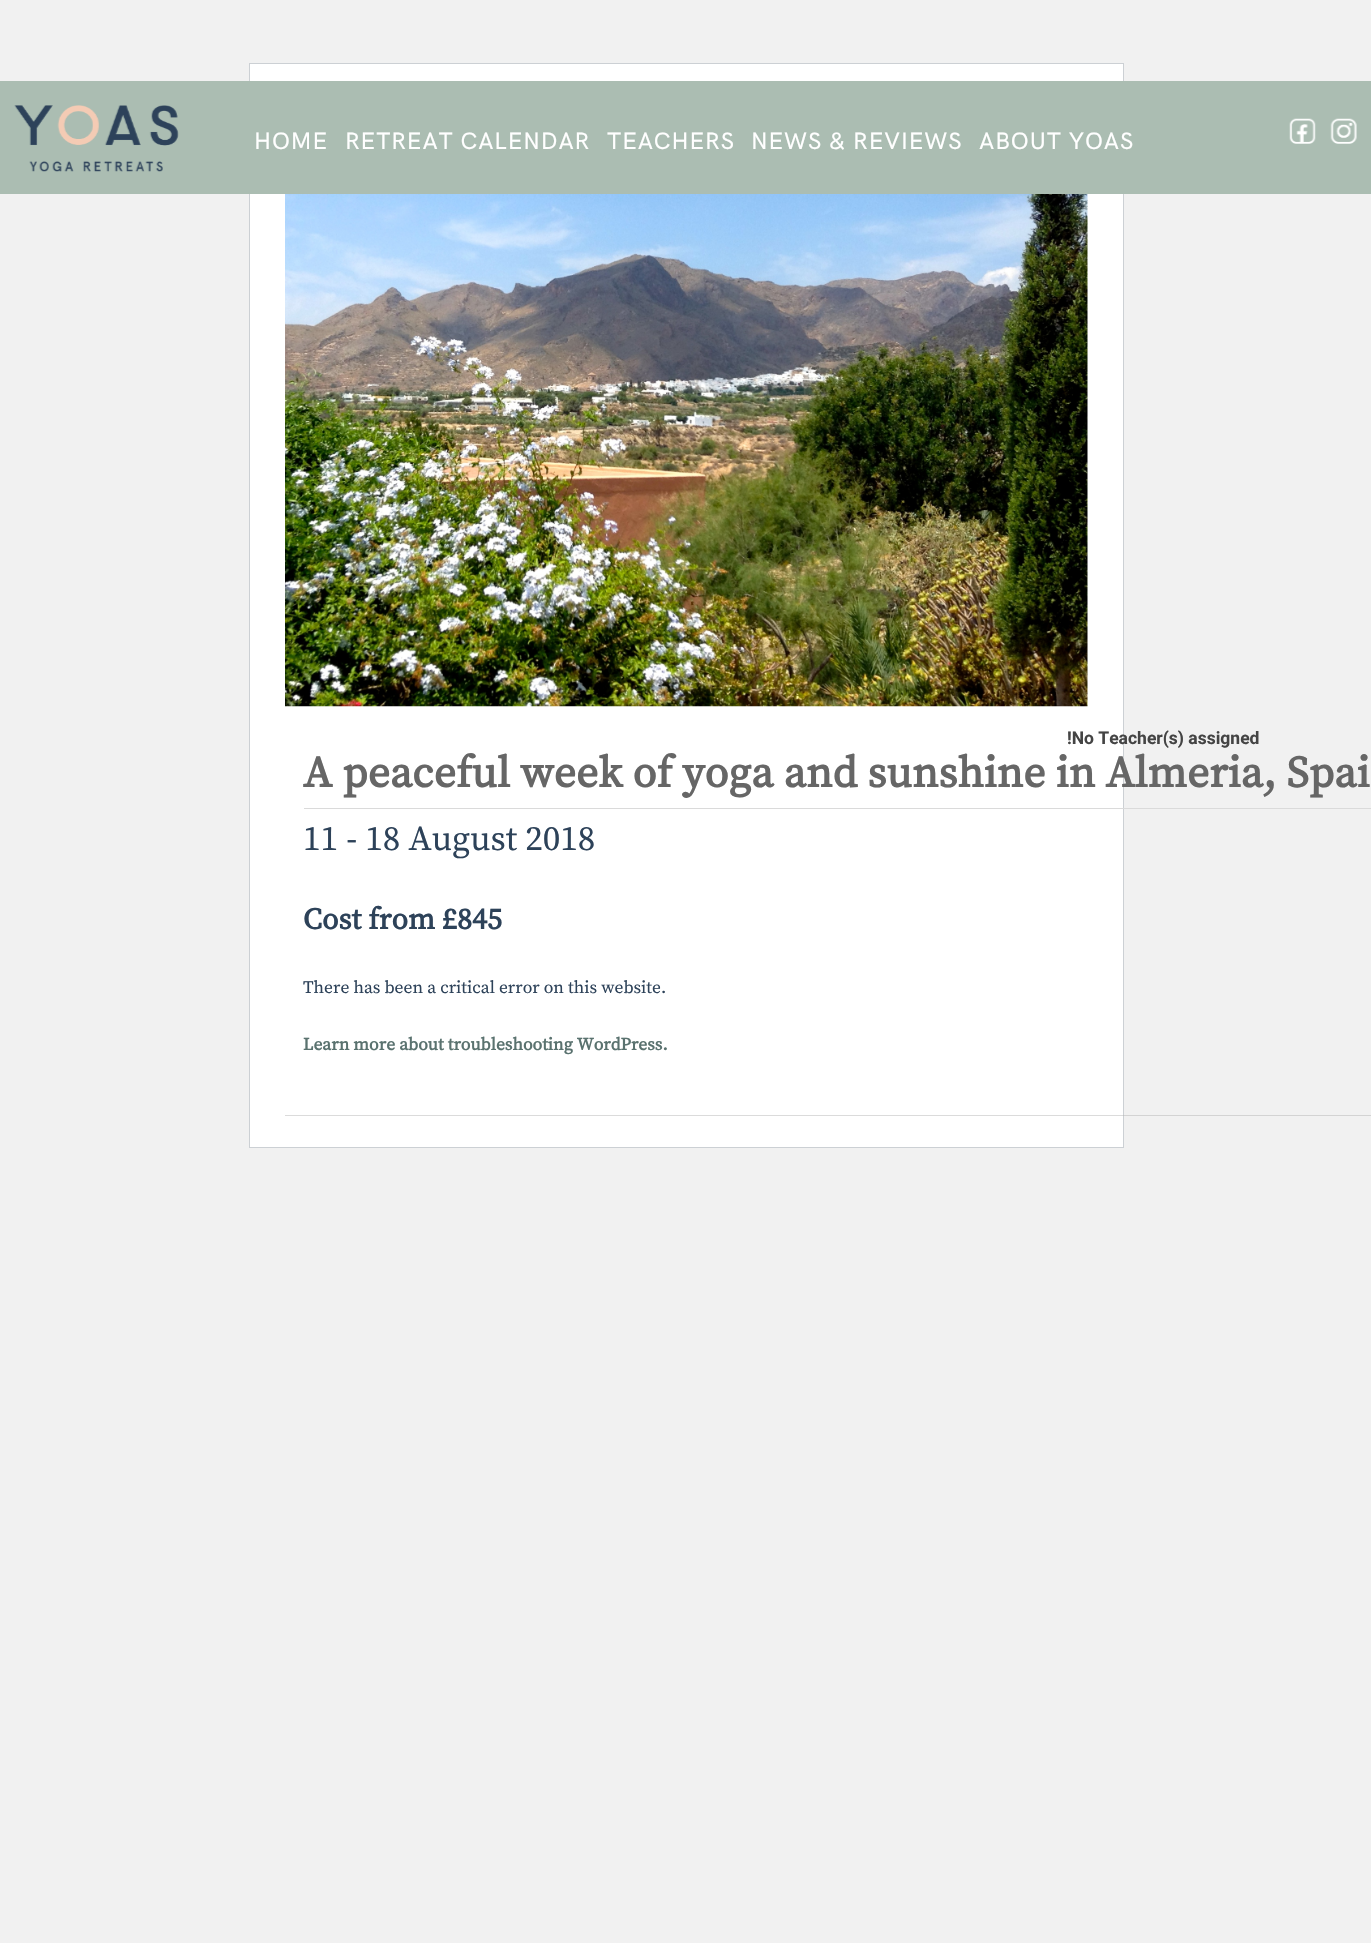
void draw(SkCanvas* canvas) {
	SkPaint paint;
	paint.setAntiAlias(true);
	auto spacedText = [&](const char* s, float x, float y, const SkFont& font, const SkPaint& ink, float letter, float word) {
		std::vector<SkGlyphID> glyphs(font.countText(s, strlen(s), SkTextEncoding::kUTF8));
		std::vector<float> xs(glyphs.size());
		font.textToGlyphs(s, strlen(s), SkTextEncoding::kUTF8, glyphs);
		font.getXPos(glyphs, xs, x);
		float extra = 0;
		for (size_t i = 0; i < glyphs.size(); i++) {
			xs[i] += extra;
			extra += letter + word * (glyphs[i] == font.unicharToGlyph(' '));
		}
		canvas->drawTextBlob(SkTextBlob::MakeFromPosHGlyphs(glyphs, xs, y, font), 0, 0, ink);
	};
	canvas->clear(0xfff1f1f1);
	paint.setColor(0xffffffff);
	canvas->drawRect(SkRect::MakeXYWH(249.5, 63.5, 874, 1084), paint);
	paint.setStroke(true);
	paint.setStrokeWidth(1);
	paint.setColor(0xffccd0d4);
	canvas->drawRect(SkRect::MakeXYWH(249.5, 63.5, 874, 1084), paint);
	paint.setStroke(false);
	paint.setColor(0xffabbdb2);
	canvas->drawRect(SkRect::MakeXYWH(0, 81, 1371, 113), paint);
	canvas->drawImageRect(SkImages::DeferredFromEncodedData(SkData::MakeFromFileName("img1.png")), SkRect::MakeXYWH(14, 105, 165, 67), SkSamplingOptions());
	SkFont f1(fontMgr->matchFamilyStyle("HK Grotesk", SkFontStyle(500, SkFontStyle::kNormal_Width, SkFontStyle::kUpright_Slant)), 23.75);
	f1.setSubpixel(true);
	paint.setColor(0xffffffff);
	spacedText("HOME", 254, 149, f1, paint, 0.9, 0);
	spacedText("RETREAT CALENDAR", 345, 149, f1, paint, 0.9, 0);
	spacedText("TEACHERS", 607, 149, f1, paint, 0.9, 0);
	spacedText("NEWS & REVIEWS", 751, 149, f1, paint, 0.9, 0);
	spacedText("ABOUT YOAS", 979, 149, f1, paint, 0.9, 0);
	canvas->drawImageRect(SkImages::DeferredFromEncodedData(SkData::MakeFromFileName("img2.png")), SkRect::MakeXYWH(1289, 118, 27, 26), SkSamplingOptions());
	canvas->drawImageRect(SkImages::DeferredFromEncodedData(SkData::MakeFromFileName("img3.png")), SkRect::MakeXYWH(1330, 118, 27, 26), SkSamplingOptions());
	canvas->drawImageRect(SkImages::DeferredFromEncodedData(SkData::MakeFromFileName("img4.png")), SkRect::MakeXYWH(285, 194, 803, 513), SkSamplingOptions());
	paint.setColor(0x73afafaf);
	canvas->drawRect(SkRect::MakeXYWH(285, 1115, 1086, 1), paint);
	SkFont f2(fontMgr->matchFamilyStyle("Roboto", SkFontStyle::Bold()), 17.5);
	f2.setSubpixel(true);
	paint.setColor(0xff444444);
	canvas->drawString("!No Teacher(s) assigned", 1067, 744, f2, paint);
	paint.setColor(0xffdadada);
	canvas->drawRect(SkRect::MakeXYWH(304, 808, 1067, 1), paint);
	SkFont f3(fontMgr->matchFamilyStyle("Source Serif Pro", SkFontStyle::Bold()), 43.75);
	f3.setSubpixel(true);
	paint.setColor(0xff666666);
	canvas->drawString("A peaceful week of yoga and sunshine in Almeria, Spai", 303, 787, f3, paint);
	SkFont f4(fontMgr->matchFamilyStyle("Source Serif Pro", SkFontStyle::Normal()), 35);
	f4.setSubpixel(true);
	paint.setColor(0xff2d4259);
	canvas->drawString("11 - 18 August 2018", 303, 850, f4, paint);
	SkFont f5(fontMgr->matchFamilyStyle("Source Serif Pro", SkFontStyle::Bold()), 30);
	f5.setSubpixel(true);
	canvas->drawString("Cost from £845", 303, 929, f5, paint);
	SkFont f6(fontMgr->matchFamilyStyle("Source Serif Pro", SkFontStyle::Normal()), 17.5);
	f6.setSubpixel(true);
	canvas->drawString("There has been a critical error on this website.", 303, 993, f6, paint);
	SkFont f7(fontMgr->matchFamilyStyle("Source Serif Pro", SkFontStyle::Bold()), 17.5);
	f7.setSubpixel(true);
	paint.setColor(0xff5a726f);
	canvas->drawString("Learn more about troubleshooting WordPress.", 303, 1050, f7, paint);
}
